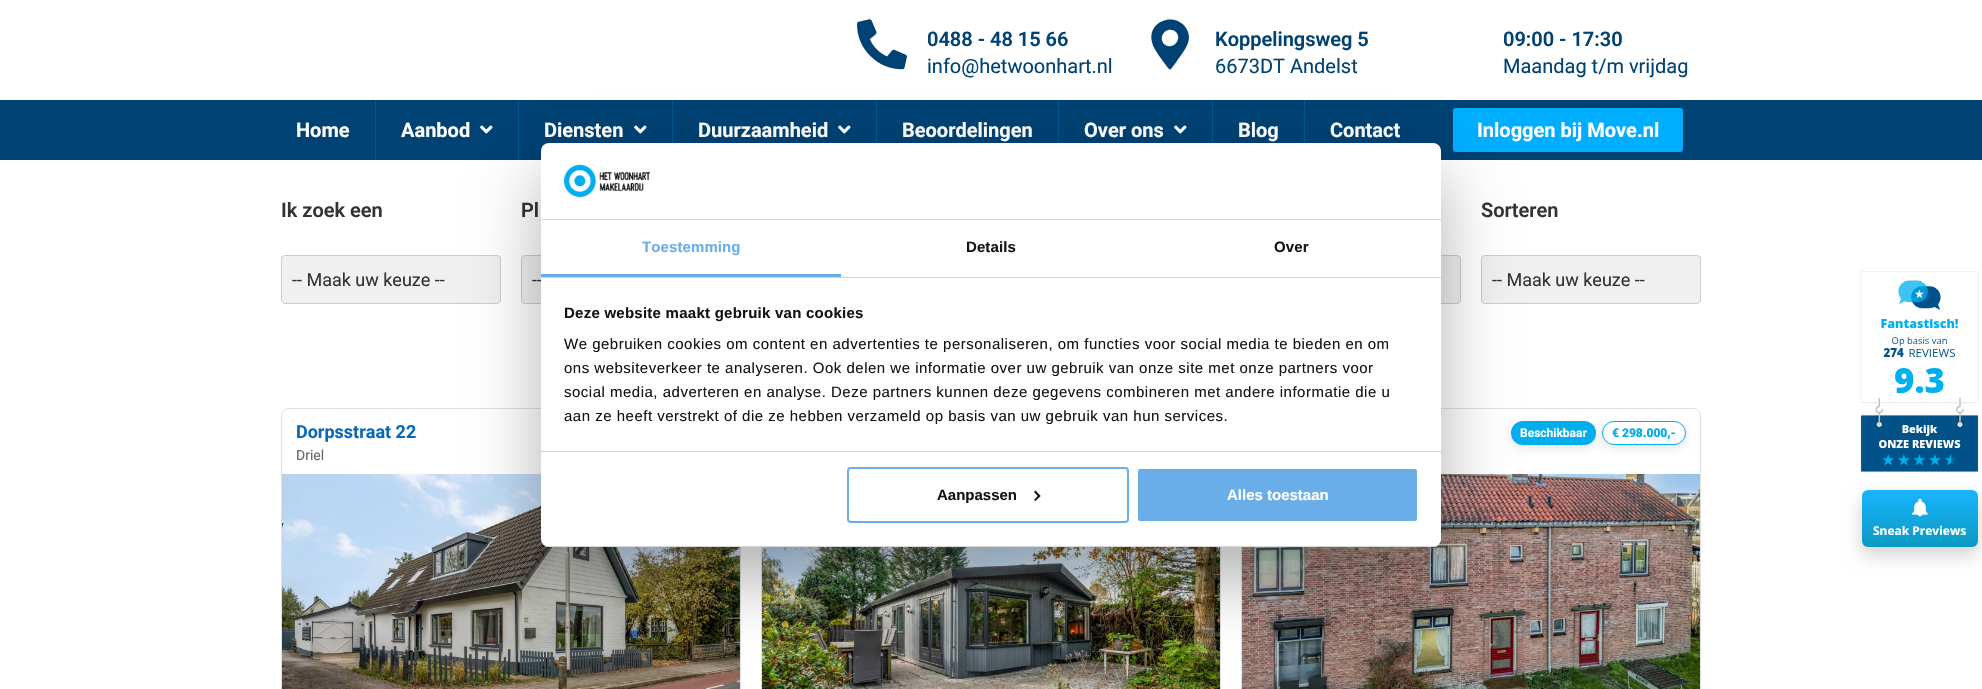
void draw(SkCanvas* canvas) {
	SkPaint paint;
	paint.setAntiAlias(true);
	auto spacedText = [&](const char* s, float x, float y, const SkFont& font, const SkPaint& ink, float letter, float word) {
		std::vector<SkGlyphID> glyphs(font.countText(s, strlen(s), SkTextEncoding::kUTF8));
		std::vector<float> xs(glyphs.size());
		font.textToGlyphs(s, strlen(s), SkTextEncoding::kUTF8, glyphs);
		font.getXPos(glyphs, xs, x);
		float extra = 0;
		for (size_t i = 0; i < glyphs.size(); i++) {
			xs[i] += extra;
			extra += letter + word * (glyphs[i] == font.unicharToGlyph(' '));
		}
		canvas->drawTextBlob(SkTextBlob::MakeFromPosHGlyphs(glyphs, xs, y, font), 0, 0, ink);
	};
	auto svgPath = [&](const char* data, bool evenOdd = false) {
		SkPath result = *SkParsePath::FromSVGString(data);
		if (evenOdd) result.setFillType(SkPathFillType::kEvenOdd);
		return result;
	};
	canvas->clear(0xffffffff);
	canvas->drawImageRect(SkImages::DeferredFromEncodedData(SkData::MakeFromFileName("img1.png")), SkRect::MakeXYWH(857, 19, 50, 51), SkSamplingOptions());
	SkFont f1(fontMgr->matchFamilyStyle("Roboto", SkFontStyle(600, SkFontStyle::kNormal_Width, SkFontStyle::kUpright_Slant)), 20);
	f1.setSubpixel(true);
	paint.setColor(0xff004274);
	canvas->drawString("0488 - 48 15 66", 927, 46, f1, paint);
	SkFont f2(fontMgr->matchFamilyStyle("Roboto", SkFontStyle::Normal()), 20);
	f2.setSubpixel(true);
	canvas->drawString("info@hetwoonhart.nl", 927, 73, f2, paint);
	canvas->drawPath(svgPath("M1168 68C1164 62 1153 49 1152 42C1147 22 1174 11 1186 28C1194 40 1184 51 1177 61L1171 69C1170 70 1169 69 1168 68ZM1164 44C1172 51 1183 40 1176 32C1168 25 1157 36 1164 44Z"), paint);
	canvas->drawString("Koppelingsweg 5", 1215, 46, f1, paint);
	canvas->drawString("6673DT Andelst", 1215, 73, f2, paint);
	canvas->drawString("09:00 - 17:30", 1503, 46, f1, paint);
	canvas->drawString("Maandag t/m vrijdag", 1503, 73, f2, paint);
	canvas->drawRect(SkRect::MakeXYWH(0, 100, 1982, 60), paint);
	SkFont f3(fontMgr->matchFamilyStyle("Roboto", SkFontStyle::Bold()), 20);
	f3.setSubpixel(true);
	paint.setColor(0xffffffff);
	canvas->drawString("Home", 296, 137, f3, paint);
	paint.setColor(0xff005890);
	canvas->drawRect(SkRect::MakeXYWH(375, 100, 1, 60), paint);
	paint.setColor(0xffffffff);
	canvas->drawString("Aanbod", 401, 137, f3, paint);
	canvas->drawImageRect(SkImages::DeferredFromEncodedData(SkData::MakeFromFileName("img2.png")), SkRect::MakeXYWH(480, 125, 13, 9), SkSamplingOptions());
	paint.setColor(0xff005890);
	canvas->drawRect(SkRect::MakeXYWH(518, 100, 1, 60), paint);
	paint.setColor(0xffffffff);
	canvas->drawString("Diensten", 544, 137, f3, paint);
	canvas->drawImageRect(SkImages::DeferredFromEncodedData(SkData::MakeFromFileName("img2.png")), SkRect::MakeXYWH(634, 125, 13, 9), SkSamplingOptions());
	paint.setColor(0xff005890);
	canvas->drawRect(SkRect::MakeXYWH(672, 100, 1, 43), paint);
	paint.setColor(0xffffffff);
	canvas->drawString("Duurzaamheid", 698, 137, f3, paint);
	canvas->drawImageRect(SkImages::DeferredFromEncodedData(SkData::MakeFromFileName("img2.png")), SkRect::MakeXYWH(838, 125, 13, 9), SkSamplingOptions());
	paint.setColor(0xff005890);
	canvas->drawRect(SkRect::MakeXYWH(876, 100, 1, 43), paint);
	paint.setColor(0xffffffff);
	canvas->drawString("Beoordelingen", 902, 137, f3, paint);
	paint.setColor(0xff005890);
	canvas->drawRect(SkRect::MakeXYWH(1058, 100, 1, 43), paint);
	paint.setColor(0xffffffff);
	canvas->drawString("Over ons", 1084, 137, f3, paint);
	canvas->drawImageRect(SkImages::DeferredFromEncodedData(SkData::MakeFromFileName("img2.png")), SkRect::MakeXYWH(1174, 125, 13, 9), SkSamplingOptions());
	paint.setColor(0xff005890);
	canvas->drawRect(SkRect::MakeXYWH(1212, 100, 1, 43), paint);
	paint.setColor(0xffffffff);
	canvas->drawString("Blog", 1238, 137, f3, paint);
	paint.setColor(0xff005890);
	canvas->drawRect(SkRect::MakeXYWH(1304, 100, 1, 43), paint);
	paint.setColor(0xffffffff);
	canvas->drawString("Contact", 1330, 137, f3, paint);
	paint.setColor(0xff00aeff);
	canvas->drawRoundRect(SkRect::MakeXYWH(1453, 108, 230, 44), 3, 3, paint);
	paint.setColor(0xffffffff);
	canvas->drawString("Inloggen bij Move.nl", 1477, 137, f3, paint);
	paint.setColor(0xff333333);
	canvas->drawString("Ik zoek een", 281, 217, f1, paint);
	paint.setColor(0xfff0f0f0);
	canvas->drawRoundRect(SkRect::MakeXYWH(281.5, 255.5, 219, 48), 3.5, 3.5, paint);
	paint.setStroke(true);
	paint.setStrokeWidth(1);
	paint.setColor(0xffcccccc);
	canvas->drawRoundRect(SkRect::MakeXYWH(281.5, 255.5, 219, 48), 3.5, 3.5, paint);
	SkFont f4(fontMgr->matchFamilyStyle("Roboto", SkFontStyle::Normal()), 18);
	f4.setSubpixel(true);
	paint.setStroke(false);
	paint.setColor(0xff333333);
	canvas->drawString("-- Maak uw keuze --", 292, 286, f4, paint);
	canvas->drawString("Pl", 521, 217, f1, paint);
	paint.setColor(0xfff0f0f0);
	canvas->drawRoundRect(SkRect::MakeXYWH(521.5, 255.5, 219, 48), 3.5, 3.5, paint);
	paint.setStroke(true);
	paint.setColor(0xffcccccc);
	canvas->drawRoundRect(SkRect::MakeXYWH(521.5, 255.5, 219, 48), 3.5, 3.5, paint);
	paint.setStroke(false);
	paint.setColor(0xff333333);
	canvas->drawString("--", 532, 286, f4, paint);
	paint.setColor(0xfff0f0f0);
	canvas->drawRoundRect(SkRect::MakeXYWH(1241.5, 255.5, 219, 48), 3.5, 3.5, paint);
	paint.setStroke(true);
	paint.setColor(0xffcccccc);
	canvas->drawRoundRect(SkRect::MakeXYWH(1241.5, 255.5, 219, 48), 3.5, 3.5, paint);
	paint.setStroke(false);
	paint.setColor(0xff333333);
	canvas->drawString("Sorteren", 1481, 217, f1, paint);
	paint.setColor(0xfff0f0f0);
	canvas->drawRoundRect(SkRect::MakeXYWH(1481.5, 255.5, 219, 48), 3.5, 3.5, paint);
	paint.setStroke(true);
	paint.setColor(0xffcccccc);
	canvas->drawRoundRect(SkRect::MakeXYWH(1481.5, 255.5, 219, 48), 3.5, 3.5, paint);
	paint.setStroke(false);
	paint.setColor(0xff333333);
	canvas->drawString("-- Maak uw keuze --", 1492, 286, f4, paint);
	paint.setStroke(true);
	paint.setColor(0xffe0e0e0);
	canvas->drawRoundRect(SkRect::MakeXYWH(281.5, 408.5, 459, 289), 7.5, 7.5, paint);
	SkFont f5(fontMgr->matchFamilyStyle("Roboto", SkFontStyle::Bold()), 18);
	f5.setSubpixel(true);
	paint.setStroke(false);
	paint.setColor(0xff0c68b5);
	canvas->drawString("Dorpsstraat 22", 296, 438, f5, paint);
	SkFont f6(fontMgr->matchFamilyStyle("Roboto", SkFontStyle::Normal()), 14);
	f6.setSubpixel(true);
	paint.setColor(0xff666666);
	canvas->drawString("Driel", 296, 460, f6, paint);
	canvas->drawImageRect(SkImages::DeferredFromEncodedData(SkData::MakeFromFileName("img3.png")), SkRect::MakeXYWH(282, 474, 458, 215), SkSamplingOptions());
	paint.setStroke(true);
	paint.setColor(0xffe0e0e0);
	canvas->drawRect(SkRect::MakeXYWH(761.5, 408.5, 459, 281), paint);
	canvas->drawImageRect(SkImages::DeferredFromEncodedData(SkData::MakeFromFileName("img4.png")), SkRect::MakeXYWH(762, 547, 458, 142), SkSamplingOptions());
	canvas->drawRoundRect(SkRect::MakeXYWH(1241.5, 408.5, 459, 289), 7.5, 7.5, paint);
	paint.setStroke(false);
	paint.setColor(0x1a000000);
	paint.setMaskFilter(SkMaskFilter::MakeBlur(kNormal_SkBlurStyle, 4));
	canvas->drawRoundRect(SkRect::MakeXYWH(1511, 424, 85, 24), 12, 12, paint);
	paint.setMaskFilter(nullptr);
	paint.setColor(0xff00aeee);
	canvas->drawRoundRect(SkRect::MakeXYWH(1511, 421, 85, 24), 12, 12, paint);
	SkFont f7(fontMgr->matchFamilyStyle("Roboto", SkFontStyle::Bold()), 12);
	f7.setSubpixel(true);
	paint.setColor(0xffffffff);
	canvas->drawString("Beschikbaar", 1520, 437, f7, paint);
	paint.setColor(0x1a000000);
	paint.setMaskFilter(SkMaskFilter::MakeBlur(kNormal_SkBlurStyle, 4));
	canvas->drawRoundRect(SkRect::MakeXYWH(1602, 424, 84, 24), 12, 12, paint);
	paint.setMaskFilter(nullptr);
	paint.setColor(0xffffffff);
	canvas->drawRoundRect(SkRect::MakeXYWH(1602.5, 421.5, 83, 23), 11.5, 11.5, paint);
	paint.setStroke(true);
	paint.setColor(0xff00aeee);
	canvas->drawRoundRect(SkRect::MakeXYWH(1602.5, 421.5, 83, 23), 11.5, 11.5, paint);
	SkFont f8(fontMgr->matchFamilyStyle("Roboto", SkFontStyle(900, SkFontStyle::kNormal_Width, SkFontStyle::kUpright_Slant)), 12);
	f8.setSubpixel(true);
	paint.setStroke(false);
	canvas->drawString("€ 298.000,-", 1612, 437, f8, paint);
	canvas->drawImageRect(SkImages::DeferredFromEncodedData(SkData::MakeFromFileName("img5.png")), SkRect::MakeXYWH(1242, 474, 458, 215), SkSamplingOptions());
	paint.setColor(0x4d000000);
	paint.setMaskFilter(SkMaskFilter::MakeBlur(kNormal_SkBlurStyle, 34));
	canvas->drawRoundRect(SkRect::MakeXYWH(541, 175, 900, 404), 8, 8, paint);
	paint.setMaskFilter(nullptr);
	paint.setColor(0xffffffff);
	canvas->drawRoundRect(SkRect::MakeXYWH(541, 143, 900, 404), 8, 8, paint);
	paint.setColor(0xffd6d6d6);
	canvas->drawRect(SkRect::MakeXYWH(541, 219, 900, 1), paint);
	canvas->drawImageRect(SkImages::DeferredFromEncodedData(SkData::MakeFromFileName("img6.png")), SkRect::MakeXYWH(563, 164, 88, 33), SkSamplingOptions());
	canvas->drawRect(SkRect::MakeXYWH(541, 277, 900, 1), paint);
	paint.setColor(0xff69aee9);
	canvas->drawRect(SkRect::MakeXYWH(541, 274, 300, 3), paint);
	SkFont f9(fontMgr->matchFamilyStyle("Liberation Sans", SkFontStyle::Bold()), 15);
	f9.setSubpixel(true);
	spacedText("Toestemming", 642, 252, f9, paint, 0.1, 0);
	paint.setColor(0xff141414);
	spacedText("Details", 966, 252, f9, paint, 0.1, 0);
	spacedText("Over", 1274, 252, f9, paint, 0.1, 0);
	paint.setColor(0xffd6d6d6);
	canvas->drawRect(SkRect::MakeXYWH(541, 451, 900, 1), paint);
	paint.setColor(0xff141414);
	spacedText("Deze website maakt gebruik van cookies", 564, 318, f9, paint, 0.25, 0);
	SkFont f10(fontMgr->matchFamilyStyle("Liberation Sans", SkFontStyle::Normal()), 15);
	f10.setSubpixel(true);
	spacedText("We gebruiken cookies om content en advertenties te personaliseren, om functies voor social media te bieden en om", 564, 349, f10, paint, 0.5, 0);
	spacedText("ons websiteverkeer te analyseren. Ook delen we informatie over uw gebruik van onze site met onze partners voor", 564, 373, f10, paint, 0.5, 0);
	spacedText("social media, adverteren en analyse. Deze partners kunnen deze gegevens combineren met andere informatie die u", 564, 397, f10, paint, 0.5, 0);
	spacedText("aan ze heeft verstrekt of die ze hebben verzameld op basis van uw gebruik van hun services.", 564, 421, f10, paint, 0.5, 0);
	canvas->save();
	canvas->clipPath(svgPath("M549 143H1433C1437.5 143 1441 146.5 1441 151V539C1441 543.5 1437.5 547 1433 547H549C544.5 547 541 543.5 541 539V151C541 146.5 544.5 143 549 143Z"), true);
	paint.setColor(0xffd6d6d6);
	canvas->drawRect(SkRect::MakeXYWH(541, 546, 900, 1), paint);
	canvas->restore();
	paint.setStroke(true);
	paint.setStrokeWidth(2);
	paint.setColor(0xff69aee9);
	canvas->drawRoundRect(SkRect::MakeXYWH(848, 468, 280, 54), 3, 3, paint);
	paint.setStroke(false);
	paint.setColor(0xff141414);
	canvas->drawString("Aanpassen", 937, 500, f9, paint);
	canvas->drawPath(svgPath("M1035.5 490.5L1040.5 496L1039 497.5L1034 492Z"), paint);
	canvas->drawPath(svgPath("M1039 494.5L1040.5 496L1035.5 501L1034 500Z"), paint);
	paint.setColor(0xff69aee9);
	canvas->drawRoundRect(SkRect::MakeXYWH(1137, 468, 281, 54), 3, 3, paint);
	paint.setStroke(true);
	paint.setColor(0xffffffff);
	canvas->drawRoundRect(SkRect::MakeXYWH(1137, 468, 281, 54), 3, 3, paint);
	paint.setStroke(false);
	canvas->drawString("Alles toestaan", 1227, 500, f9, paint);
	canvas->drawImageRect(SkImages::DeferredFromEncodedData(SkData::MakeFromFileName("img7.png")), SkRect::MakeXYWH(1860, 271, 119, 201), SkSamplingOptions());
	paint.setColor(0x2e000000);
	paint.setMaskFilter(SkMaskFilter::MakeBlur(kNormal_SkBlurStyle, 9));
	canvas->drawRoundRect(SkRect::MakeXYWH(1862, 498, 116, 57), 6, 6, paint);
	paint.setMaskFilter(nullptr);
	{
		const SkColor colors[] = {0xff19b5ff, 0xff0b99c0};
		const float stops[] = {0, 1};
		const SkPoint ends[] = {{1920, 490}, {1920, 547}};
		paint.setShader(SkGradientShader::MakeLinear(ends, colors, stops, 2, SkTileMode::kClamp));
		paint.setAlpha(255);
	}
	canvas->drawRoundRect(SkRect::MakeXYWH(1862, 490, 116, 57), 6, 6, paint);
	canvas->drawImageRect(SkImages::DeferredFromEncodedData(SkData::MakeFromFileName("img8.png")), SkRect::MakeXYWH(1912, 498, 16, 19), SkSamplingOptions());
	SkFont f11(fontMgr->matchFamilyStyle("Noto Sans", SkFontStyle::Bold()), 12);
	f11.setSubpixel(true);
	paint.setShader(nullptr);
	paint.setColor(0xffffffff);
	canvas->drawString("Sneak Previews", 1873, 535, f11, paint);
}
